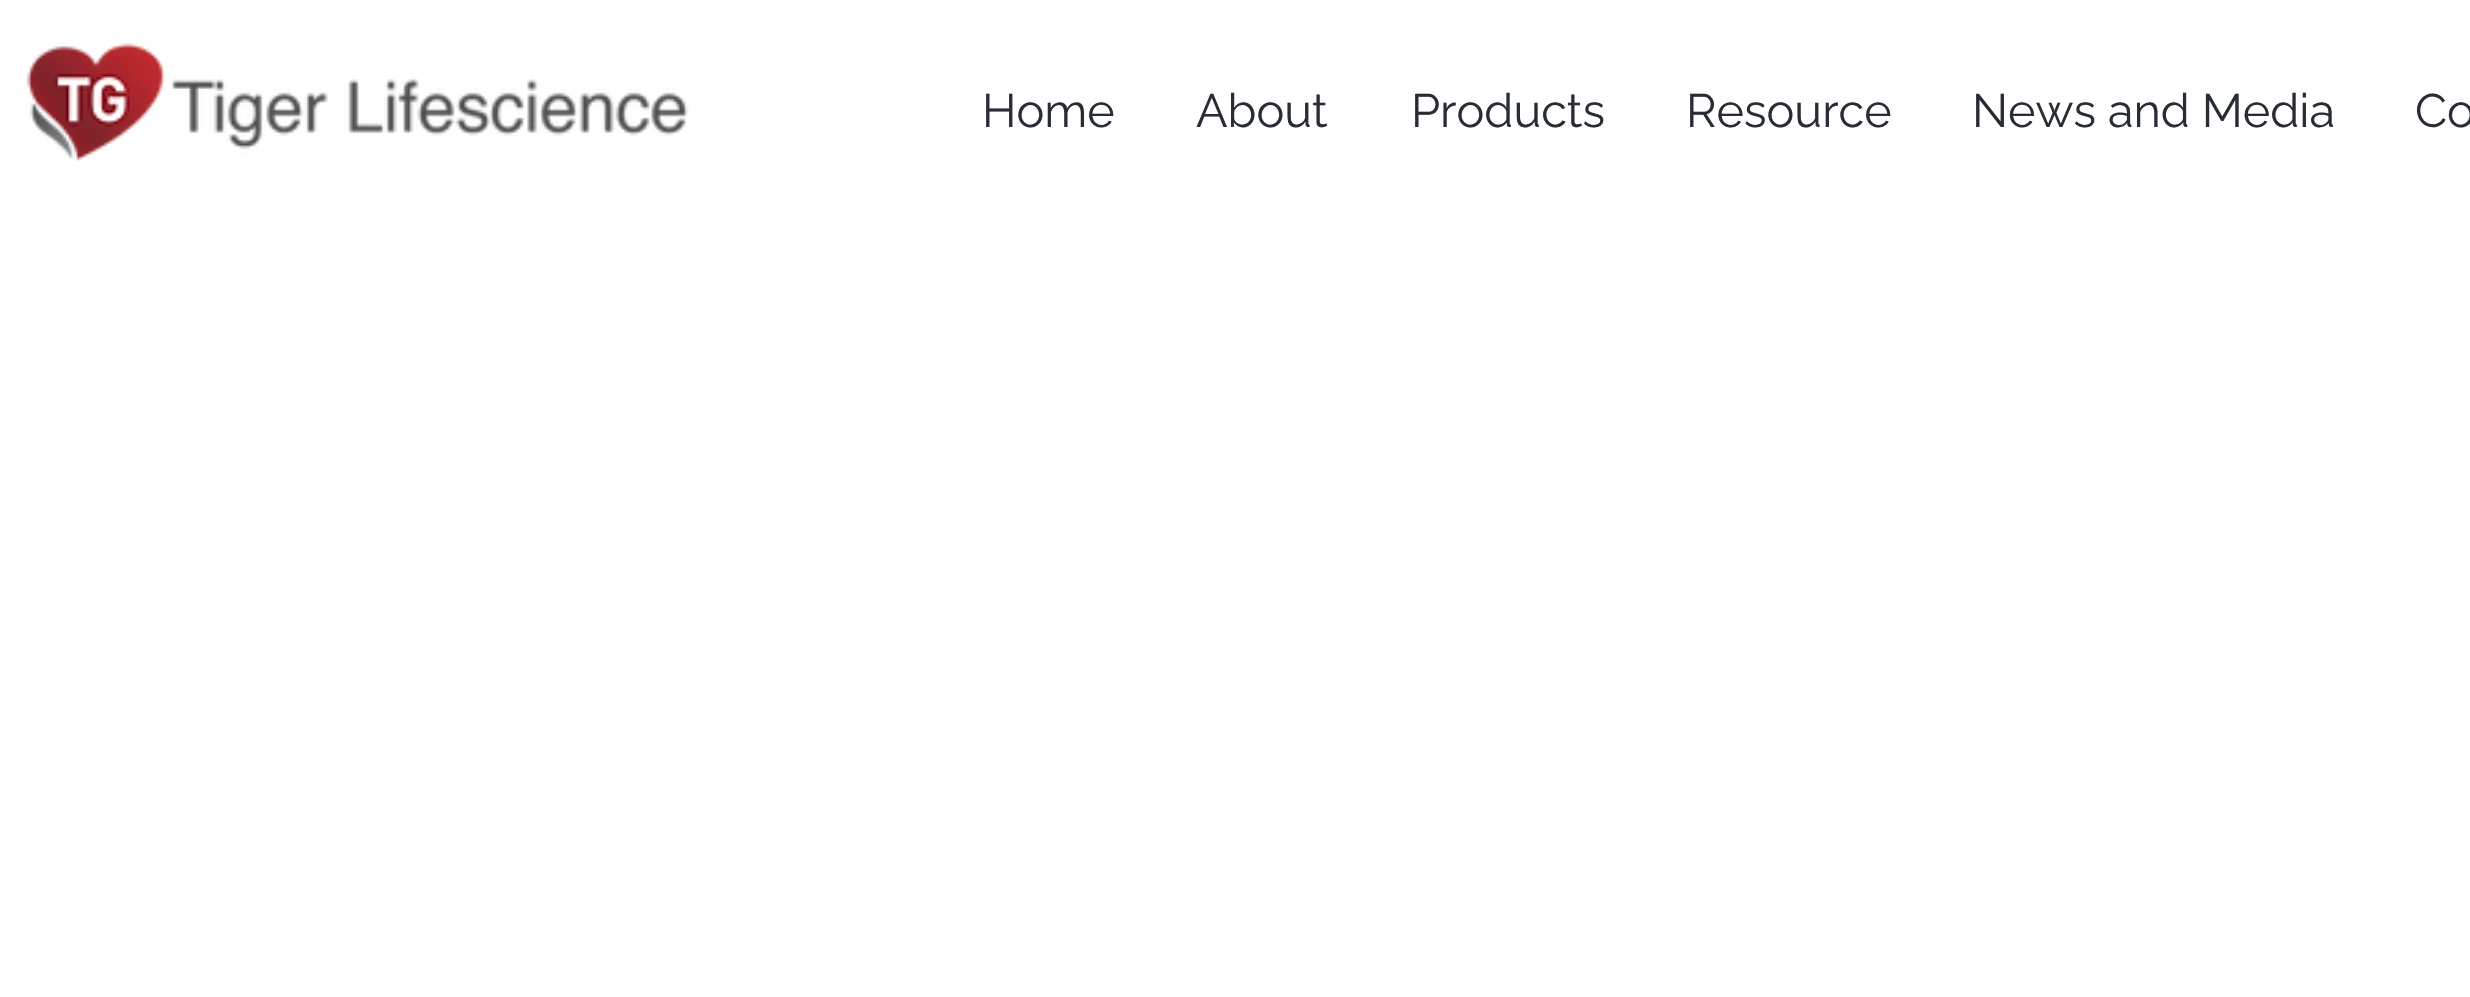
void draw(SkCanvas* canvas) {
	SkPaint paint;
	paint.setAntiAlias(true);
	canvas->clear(0xffffffff);
	canvas->drawImageRect(SkImages::DeferredFromEncodedData(SkData::MakeFromFileName("img1.png")), SkRect::MakeXYWH(26, 43, 663, 118), SkSamplingOptions());
	SkFont f1(fontMgr->matchFamilyStyle("Raleway", SkFontStyle::Normal()), 46.75);
	f1.setSubpixel(true);
	paint.setColor(0xff282d35);
	canvas->drawString("Home", 982, 127, f1, paint);
	canvas->drawString("About", 1196, 127, f1, paint);
	canvas->drawString("Products", 1411, 127, f1, paint);
	canvas->drawString("Resource", 1686, 127, f1, paint);
	canvas->drawString("News and Media", 1972, 127, f1, paint);
	canvas->drawString("Co", 2415, 127, f1, paint);
}
